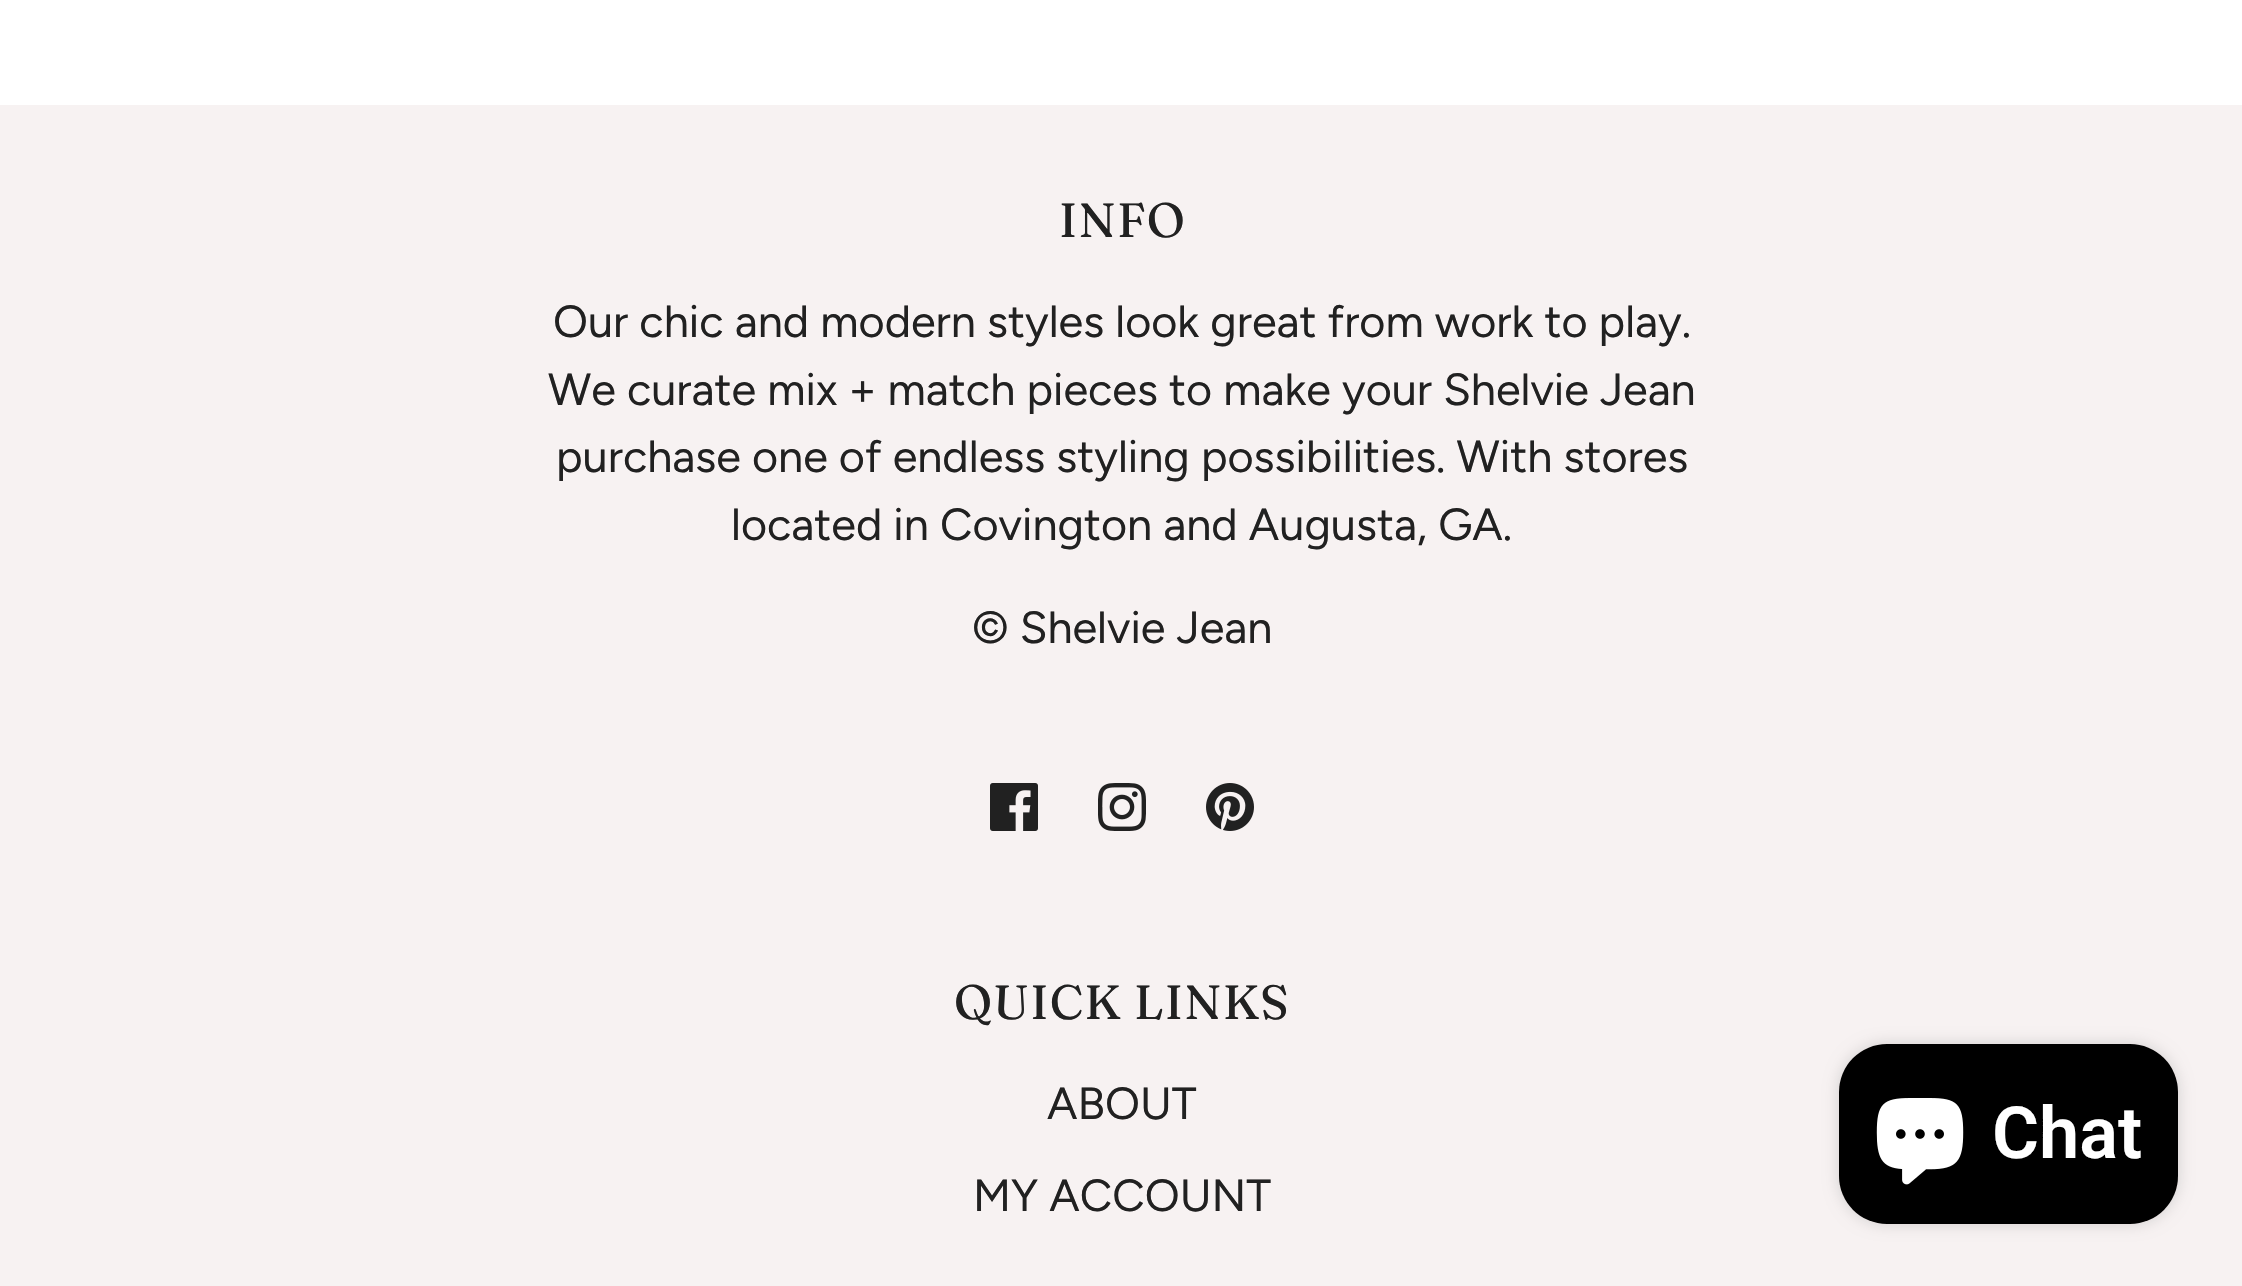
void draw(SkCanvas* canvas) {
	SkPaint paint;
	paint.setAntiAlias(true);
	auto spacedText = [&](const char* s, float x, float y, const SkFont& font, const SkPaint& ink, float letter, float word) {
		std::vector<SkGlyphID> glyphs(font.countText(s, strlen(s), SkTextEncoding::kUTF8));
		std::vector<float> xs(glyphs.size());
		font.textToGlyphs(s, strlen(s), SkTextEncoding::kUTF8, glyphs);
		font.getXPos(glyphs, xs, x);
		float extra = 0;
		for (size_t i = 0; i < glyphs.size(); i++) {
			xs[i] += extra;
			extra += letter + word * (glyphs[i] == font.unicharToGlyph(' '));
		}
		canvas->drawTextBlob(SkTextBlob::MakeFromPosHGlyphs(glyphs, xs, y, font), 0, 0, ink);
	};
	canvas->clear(0xffffffff);
	paint.setColor(0xfff7f2f2);
	canvas->drawRect(SkRect::MakeXYWH(0, 105, 2242, 1181), paint);
	SkFont f1(fontMgr->matchFamilyStyle("Fraunces", SkFontStyle::Normal()), 48);
	f1.setSubpixel(true);
	paint.setColor(0xff212121);
	spacedText("INFO", 1059, 237, f1, paint, 1.25, 0);
	SkFont f2(fontMgr->matchFamilyStyle("Figtree", SkFontStyle::Normal()), 45);
	f2.setSubpixel(true);
	canvas->drawString("Our chic and modern styles look great from work to play.", 553, 337, f2, paint);
	canvas->drawString("We curate mix + match pieces to make your Shelvie Jean", 548, 405, f2, paint);
	canvas->drawString("purchase one of endless styling possibilities. With stores", 556, 472, f2, paint);
	canvas->drawString("located in Covington and Augusta, GA.", 731, 540, f2, paint);
	canvas->drawString("© Shelvie Jean", 972, 643, f2, paint);
	canvas->drawImageRect(SkImages::DeferredFromEncodedData(SkData::MakeFromFileName("img1.png")), SkRect::MakeXYWH(990, 783, 48, 48), SkSamplingOptions());
	canvas->drawImageRect(SkImages::DeferredFromEncodedData(SkData::MakeFromFileName("img2.png")), SkRect::MakeXYWH(1098, 783, 48, 48), SkSamplingOptions());
	canvas->drawImageRect(SkImages::DeferredFromEncodedData(SkData::MakeFromFileName("img3.png")), SkRect::MakeXYWH(1206, 783, 48, 48), SkSamplingOptions());
	spacedText("QUICK LINKS", 954, 1019, f1, paint, 1.25, 0);
	canvas->drawString("ABOUT", 1047, 1119, f2, paint);
	canvas->drawString("MY ACCOUNT", 973, 1211, f2, paint);
	paint.setColor(0x26000000);
	paint.setMaskFilter(SkMaskFilter::MakeBlur(kNormal_SkBlurStyle, 7.5));
	canvas->drawRoundRect(SkRect::MakeXYWH(1839, 1044, 339, 180), 48, 48, paint);
	paint.setMaskFilter(nullptr);
	paint.setColor(0xff000000);
	canvas->drawRoundRect(SkRect::MakeXYWH(1839, 1044, 339, 180), 48, 48, paint);
	canvas->drawImageRect(SkImages::DeferredFromEncodedData(SkData::MakeFromFileName("img4.png")), SkRect::MakeXYWH(1876, 1098, 88, 87), SkSamplingOptions());
	SkFont f3(fontMgr->matchFamilyStyle("Roboto", SkFontStyle(600, SkFontStyle::kNormal_Width, SkFontStyle::kUpright_Slant)), 72);
	f3.setSubpixel(true);
	paint.setColor(0xffffffff);
	canvas->drawString("Chat", 1992, 1158, f3, paint);
}
